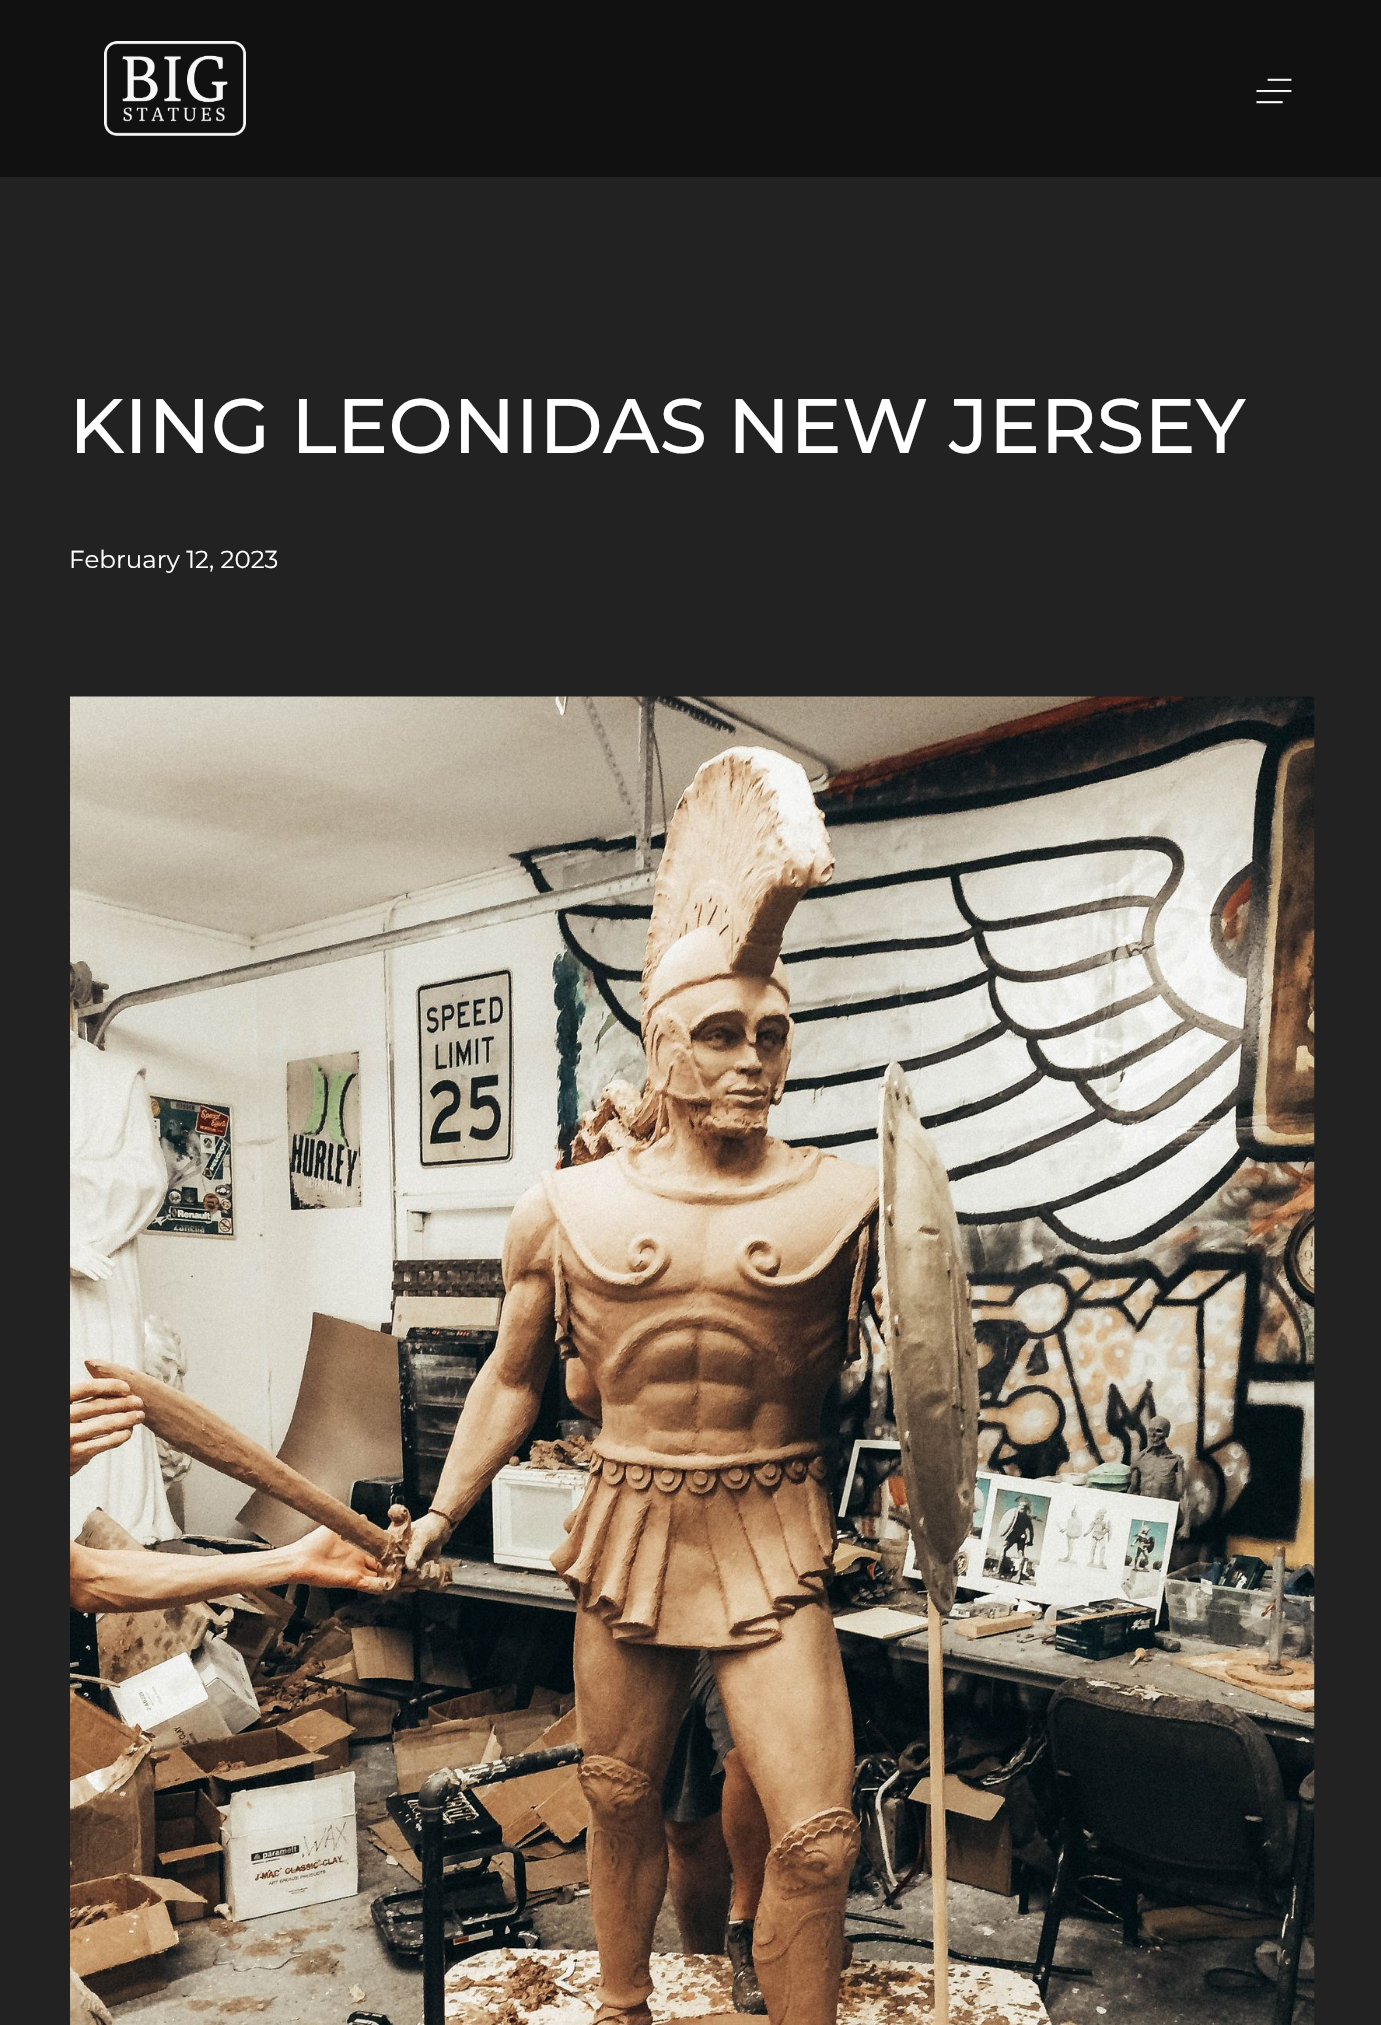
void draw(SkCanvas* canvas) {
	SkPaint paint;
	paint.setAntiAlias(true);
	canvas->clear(0xff222222);
	paint.setColor(0xff111111);
	canvas->drawRect(SkRect::MakeXYWH(0, 0, 1381, 177), paint);
	canvas->drawImageRect(SkImages::DeferredFromEncodedData(SkData::MakeFromFileName("img1.png")), SkRect::MakeXYWH(104, 41, 142, 95), SkSamplingOptions());
	canvas->drawImageRect(SkImages::DeferredFromEncodedData(SkData::MakeFromFileName("img2.png")), SkRect::MakeXYWH(1256, 78, 36, 26), SkSamplingOptions());
	SkFont f1(fontMgr->matchFamilyStyle("Montserrat", SkFontStyle(500, SkFontStyle::kNormal_Width, SkFontStyle::kUpright_Slant)), 77);
	f1.setSubpixel(true);
	paint.setColor(0xffffffff);
	canvas->drawString("KING LEONIDAS NEW JERSEY", 69, 453, f1, paint);
	SkFont f2(fontMgr->matchFamilyStyle("Montserrat", SkFontStyle::Normal()), 24.5);
	f2.setSubpixel(true);
	canvas->drawString("February 12, 2023", 69, 568, f2, paint);
	canvas->drawImageRect(SkImages::DeferredFromEncodedData(SkData::MakeFromFileName("img3.png")), SkRect::MakeXYWH(70, 696, 1245, 1329), SkSamplingOptions());
}
